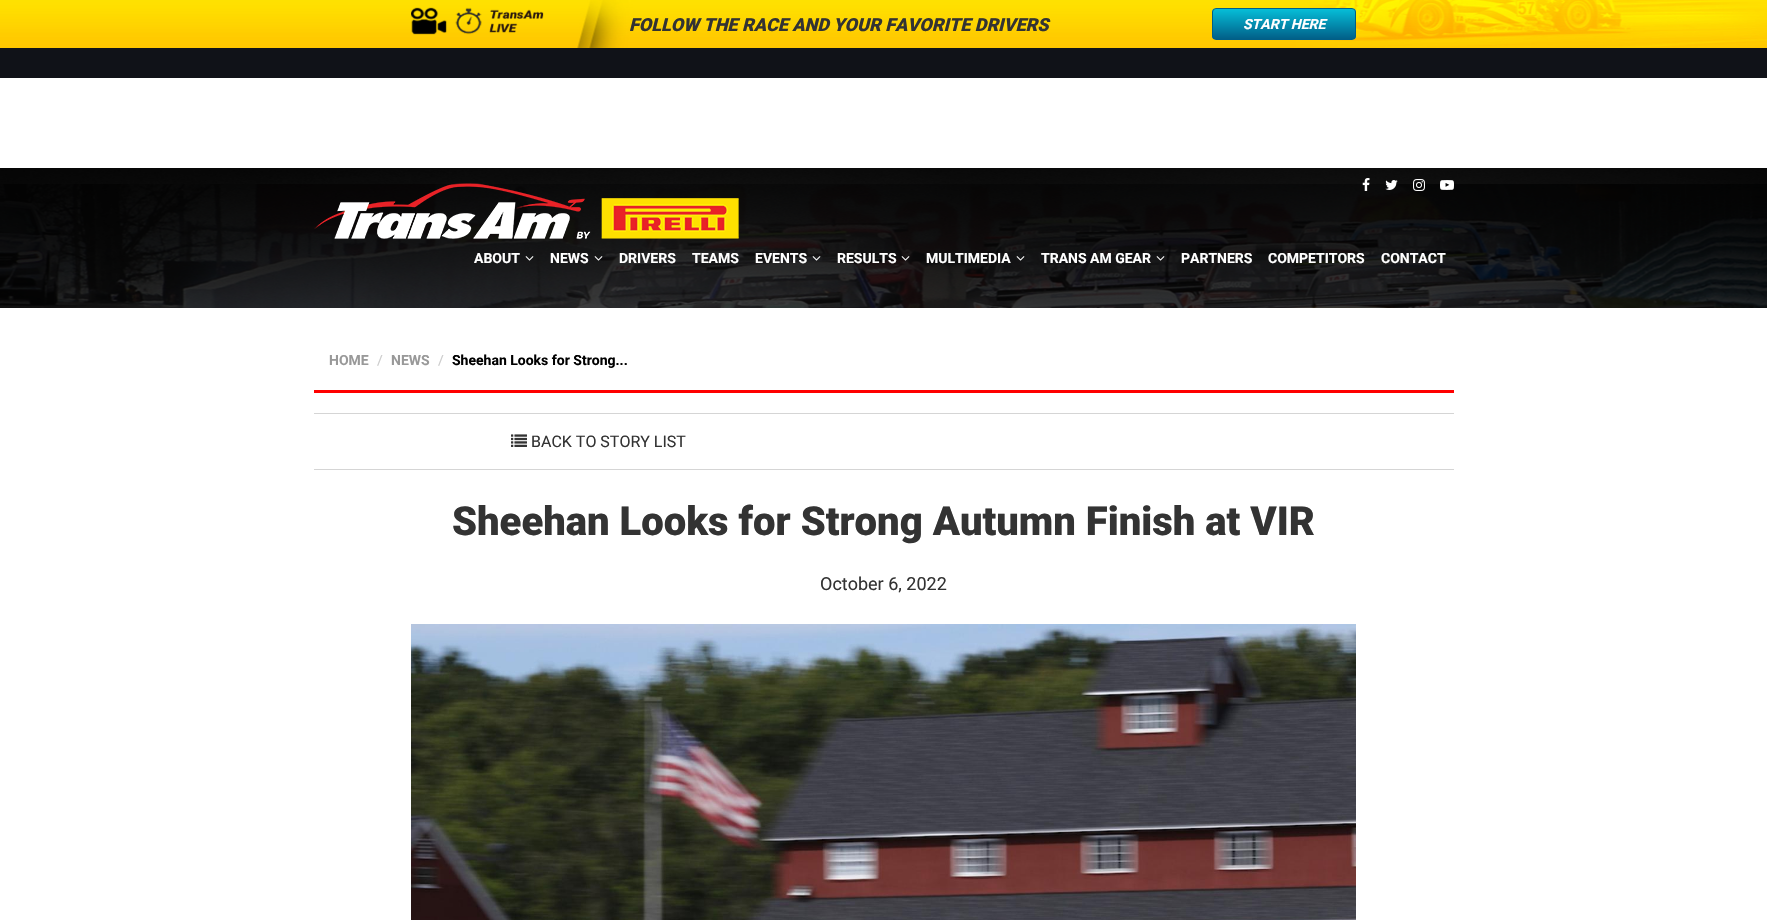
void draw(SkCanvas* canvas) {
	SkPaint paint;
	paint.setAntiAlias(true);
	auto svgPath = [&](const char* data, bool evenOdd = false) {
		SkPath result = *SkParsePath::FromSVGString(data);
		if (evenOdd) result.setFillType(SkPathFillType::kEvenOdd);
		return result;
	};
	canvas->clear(0xffffffff);
	canvas->drawImageRect(SkImages::DeferredFromEncodedData(SkData::MakeFromFileName("img1.png")), SkRect::MakeXYWH(0, 0, 1767, 48), SkSamplingOptions());
	canvas->drawImageRect(SkImages::DeferredFromEncodedData(SkData::MakeFromFileName("img2.png")), SkRect::MakeXYWH(411, 7, 133, 28), SkSamplingOptions());
	SkFont f1(fontMgr->matchFamilyStyle("Roboto", SkFontStyle(900, SkFontStyle::kNormal_Width, SkFontStyle::kItalic_Slant)), 18);
	f1.setSubpixel(true);
	paint.setColor(0xff333333);
	canvas->drawString("FOLLOW THE RACE AND YOUR FAVORITE DRIVERS", 629, 31, f1, paint);
	canvas->save();
	canvas->clipPath(svgPath("M1216 8H1352C1354 8 1356 10 1356 12V36C1356 38 1354 40 1352 40H1216C1214 40 1212 38 1212 36V12C1212 10 1214 8 1216 8Z"), true);
	{
		const SkColor colors[] = {0xff06bed8, 0xff015f88};
		const float stops[] = {0, 1};
		const SkPoint ends[] = {{1284, 9}, {1284, 39}};
		paint.setShader(SkGradientShader::MakeLinear(ends, colors, stops, 2, SkTileMode::kClamp));
		paint.setAlpha(255);
	}
	canvas->drawRect(SkRect::MakeXYWH(1212, 9, 144, 30), paint);
	canvas->restore();
	paint.setStroke(true);
	paint.setStrokeWidth(1);
	paint.setShader(nullptr);
	paint.setColor(0xff015f88);
	canvas->drawRoundRect(SkRect::MakeXYWH(1212.5, 8.5, 143, 31), 3.5, 3.5, paint);
	SkFont f2(fontMgr->matchFamilyStyle("Roboto", SkFontStyle::BoldItalic()), 14);
	f2.setSubpixel(true);
	paint.setStroke(false);
	paint.setColor(0xffffffff);
	canvas->drawString("START HERE", 1243, 29, f2, paint);
	paint.setColor(0xff101218);
	canvas->drawRect(SkRect::MakeXYWH(0, 48, 1767, 30), paint);
	canvas->drawImageRect(SkImages::DeferredFromEncodedData(SkData::MakeFromFileName("img3.png")), SkRect::MakeXYWH(0, 168, 1767, 140), SkSamplingOptions());
	canvas->drawImageRect(SkImages::DeferredFromEncodedData(SkData::MakeFromFileName("img4.png")), SkRect::MakeXYWH(314, 183, 425, 56), SkSamplingOptions());
	canvas->drawImageRect(SkImages::DeferredFromEncodedData(SkData::MakeFromFileName("img5.png")), SkRect::MakeXYWH(1362, 178, 8, 13), SkSamplingOptions());
	canvas->drawImageRect(SkImages::DeferredFromEncodedData(SkData::MakeFromFileName("img6.png")), SkRect::MakeXYWH(1385, 180, 13, 10), SkSamplingOptions());
	canvas->drawImageRect(SkImages::DeferredFromEncodedData(SkData::MakeFromFileName("img7.png")), SkRect::MakeXYWH(1413, 179, 12, 12), SkSamplingOptions());
	canvas->drawImageRect(SkImages::DeferredFromEncodedData(SkData::MakeFromFileName("img8.png")), SkRect::MakeXYWH(1440, 180, 14, 10), SkSamplingOptions());
	SkFont f3(fontMgr->matchFamilyStyle("Roboto", SkFontStyle::Bold()), 14);
	f3.setSubpixel(true);
	paint.setColor(0xffffffff);
	canvas->drawString("ABOUT", 474, 263, f3, paint);
	canvas->drawImageRect(SkImages::DeferredFromEncodedData(SkData::MakeFromFileName("img9.png")), SkRect::MakeXYWH(525, 256, 9, 5), SkSamplingOptions());
	canvas->drawString("NEWS", 550, 263, f3, paint);
	canvas->drawImageRect(SkImages::DeferredFromEncodedData(SkData::MakeFromFileName("img10.png")), SkRect::MakeXYWH(594, 256, 9, 5), SkSamplingOptions());
	canvas->drawString("DRIVERS", 619, 263, f3, paint);
	canvas->drawString("TEAMS", 692, 263, f3, paint);
	canvas->drawString("EVENTS", 755, 263, f3, paint);
	canvas->drawImageRect(SkImages::DeferredFromEncodedData(SkData::MakeFromFileName("img11.png")), SkRect::MakeXYWH(812, 256, 9, 5), SkSamplingOptions());
	canvas->drawString("RESULTS", 837, 263, f3, paint);
	canvas->drawImageRect(SkImages::DeferredFromEncodedData(SkData::MakeFromFileName("img12.png")), SkRect::MakeXYWH(901, 256, 9, 5), SkSamplingOptions());
	canvas->drawString("MULTIMEDIA", 926, 263, f3, paint);
	canvas->drawImageRect(SkImages::DeferredFromEncodedData(SkData::MakeFromFileName("img13.png")), SkRect::MakeXYWH(1016, 256, 9, 5), SkSamplingOptions());
	canvas->drawString("TRANS AM GEAR", 1041, 263, f3, paint);
	canvas->drawImageRect(SkImages::DeferredFromEncodedData(SkData::MakeFromFileName("img14.png")), SkRect::MakeXYWH(1156, 256, 9, 5), SkSamplingOptions());
	canvas->drawString("PARTNERS", 1181, 263, f3, paint);
	canvas->drawString("COMPETITORS", 1268, 263, f3, paint);
	canvas->drawString("CONTACT", 1381, 263, f3, paint);
	paint.setColor(0xffff0000);
	canvas->drawRect(SkRect::MakeXYWH(314, 390, 1140, 3), paint);
	paint.setColor(0xff999999);
	canvas->drawString("HOME", 329, 365, f3, paint);
	SkFont f4(fontMgr->matchFamilyStyle("Roboto", SkFontStyle::Normal()), 14);
	f4.setSubpixel(true);
	paint.setColor(0xffcccccc);
	canvas->drawString("/", 377, 365, f4, paint);
	paint.setColor(0xff999999);
	canvas->drawString("NEWS", 391, 365, f3, paint);
	paint.setColor(0xffcccccc);
	canvas->drawString("/", 438, 365, f4, paint);
	paint.setColor(0xff000000);
	canvas->drawString("Sheehan Looks for Strong...", 452, 365, f3, paint);
	paint.setColor(0xffd5d5d5);
	canvas->drawRect(SkRect::MakeXYWH(314, 413, 1140, 1), paint);
	canvas->drawRect(SkRect::MakeXYWH(314, 469, 1140, 1), paint);
	canvas->drawImageRect(SkImages::DeferredFromEncodedData(SkData::MakeFromFileName("img15.png")), SkRect::MakeXYWH(511, 434, 16, 13), SkSamplingOptions());
	SkFont f5(fontMgr->matchFamilyStyle("Roboto", SkFontStyle::Normal()), 16);
	f5.setSubpixel(true);
	paint.setColor(0xff333333);
	canvas->drawString("BACK TO STORY LIST", 531, 447, f5, paint);
	SkFont f6(fontMgr->matchFamilyStyle("Roboto", SkFontStyle(900, SkFontStyle::kNormal_Width, SkFontStyle::kUpright_Slant)), 40);
	f6.setSubpixel(true);
	canvas->drawString("Sheehan Looks for Strong Autumn Finish at VIR", 452, 535, f6, paint);
	SkFont f7(fontMgr->matchFamilyStyle("Roboto", SkFontStyle::Normal()), 18);
	f7.setSubpixel(true);
	canvas->drawString("October 6, 2022", 820, 590, f7, paint);
	canvas->drawImageRect(SkImages::DeferredFromEncodedData(SkData::MakeFromFileName("img16.png")), SkRect::MakeXYWH(411, 624, 945, 296), SkSamplingOptions());
}
